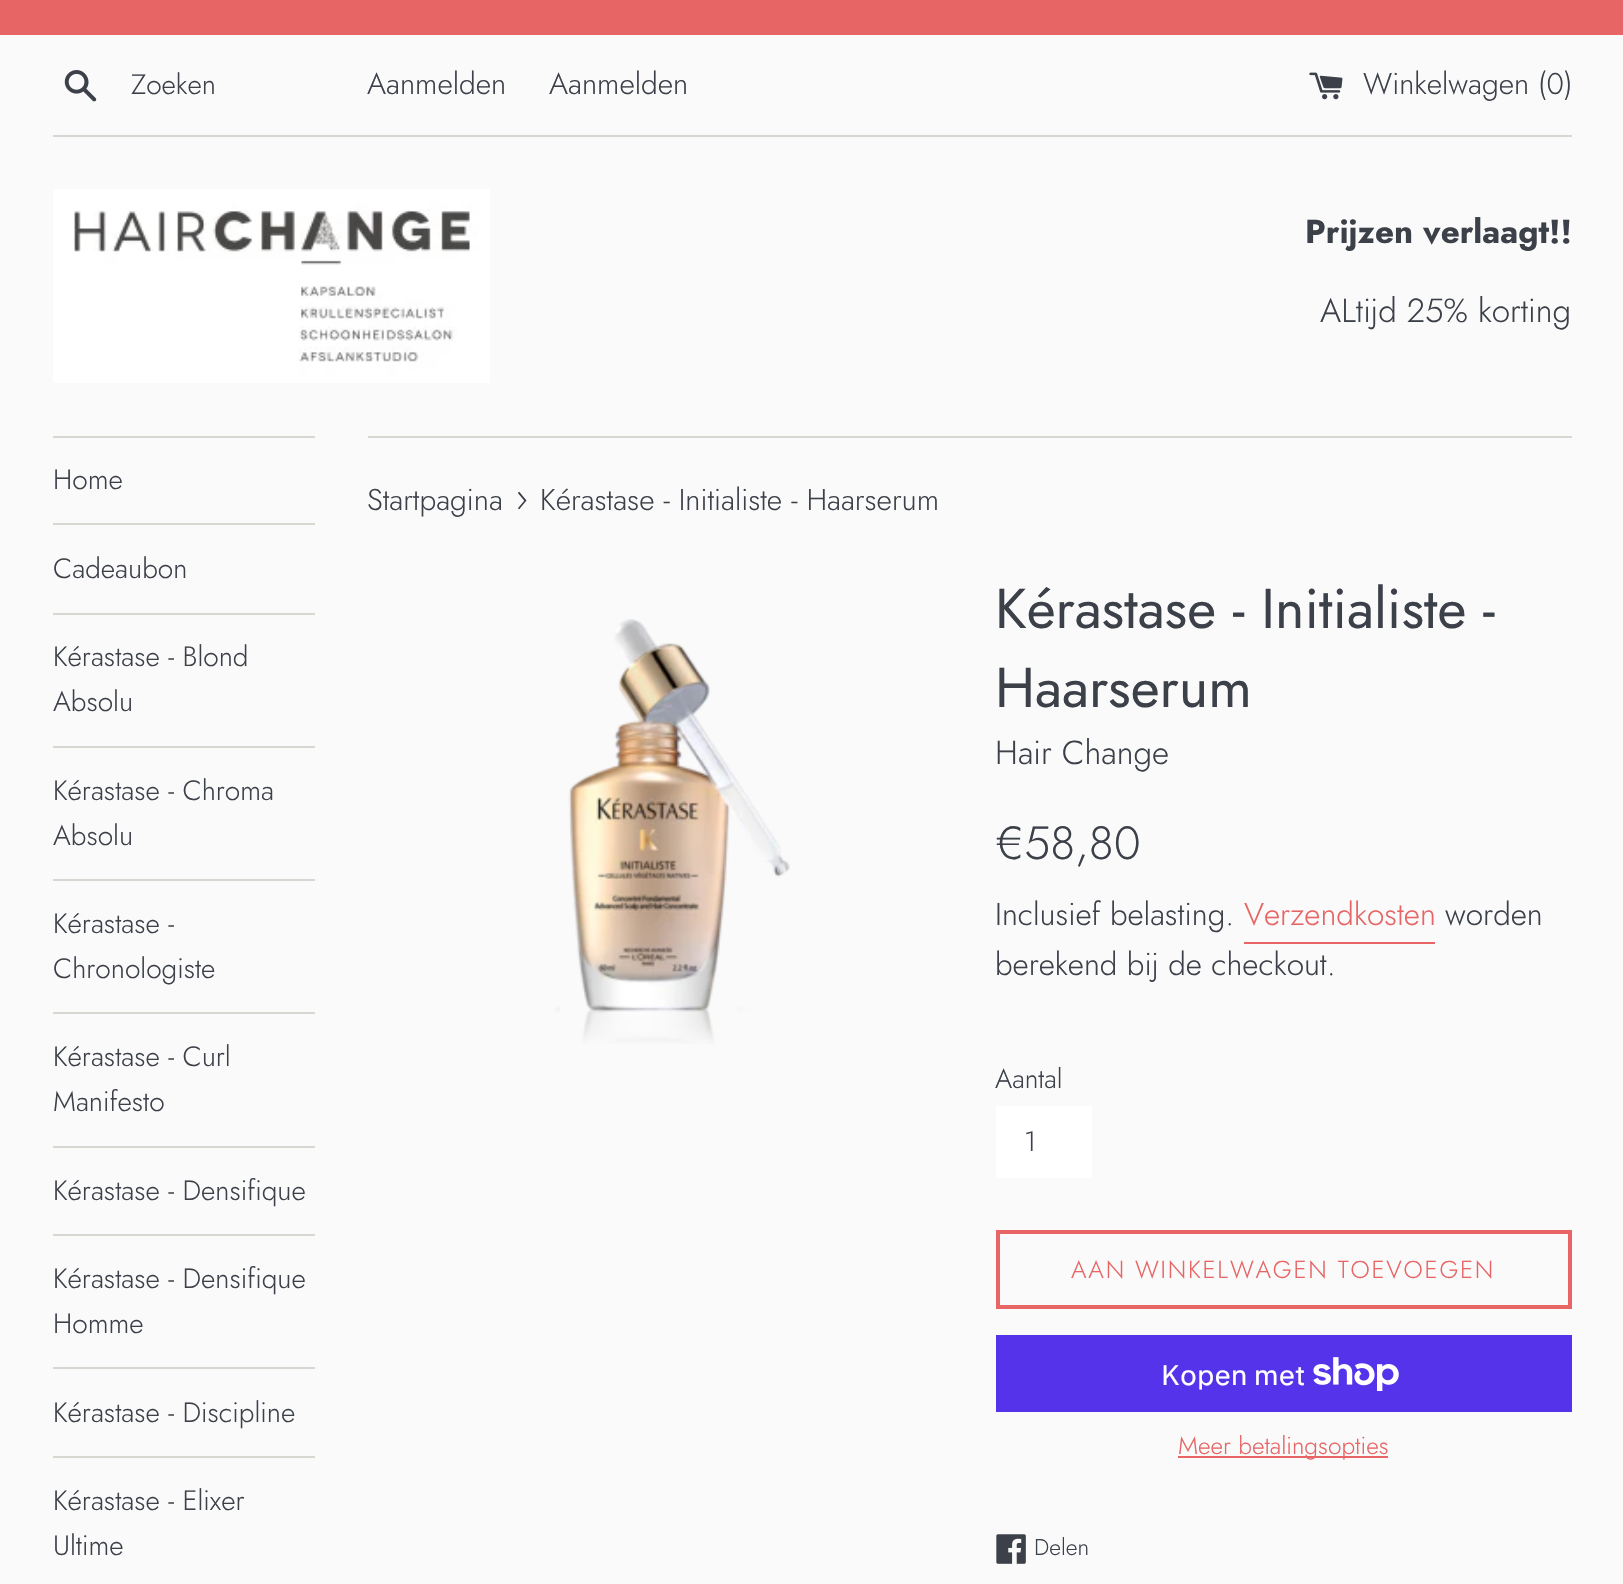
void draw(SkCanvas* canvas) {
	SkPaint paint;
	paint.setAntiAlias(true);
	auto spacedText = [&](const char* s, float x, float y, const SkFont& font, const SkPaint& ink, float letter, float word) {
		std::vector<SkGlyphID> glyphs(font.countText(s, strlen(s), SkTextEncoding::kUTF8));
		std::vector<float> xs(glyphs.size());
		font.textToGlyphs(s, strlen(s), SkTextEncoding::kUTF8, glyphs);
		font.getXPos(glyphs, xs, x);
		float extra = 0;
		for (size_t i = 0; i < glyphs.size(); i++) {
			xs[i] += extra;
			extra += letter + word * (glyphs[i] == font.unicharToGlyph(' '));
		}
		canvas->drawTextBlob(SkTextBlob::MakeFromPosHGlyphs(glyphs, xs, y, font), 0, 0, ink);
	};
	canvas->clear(0xfffafafa);
	paint.setColor(0xffe76565);
	canvas->drawRect(SkRect::MakeXYWH(0, 0, 1623, 35), paint);
	canvas->drawImageRect(SkImages::DeferredFromEncodedData(SkData::MakeFromFileName("img1.png")), SkRect::MakeXYWH(64, 70, 33, 32), SkSamplingOptions());
	SkFont f1(fontMgr->matchFamilyStyle("Jost", SkFontStyle(300, SkFontStyle::kNormal_Width, SkFontStyle::kUpright_Slant)), 28);
	f1.setSubpixel(true);
	paint.setColor(0xff3c4049);
	canvas->drawString("Zoeken", 131, 94, f1, paint);
	SkFont f2(fontMgr->matchFamilyStyle("Jost", SkFontStyle(300, SkFontStyle::kNormal_Width, SkFontStyle::kUpright_Slant)), 30);
	f2.setSubpixel(true);
	canvas->drawString("Aanmelden", 367, 94, f2, paint);
	canvas->drawString("Aanmelden", 549, 94, f2, paint);
	canvas->drawImageRect(SkImages::DeferredFromEncodedData(SkData::MakeFromFileName("img2.png")), SkRect::MakeXYWH(1309, 72, 34, 28), SkSamplingOptions());
	canvas->drawString("Winkelwagen (0)", 1363, 94, f2, paint);
	paint.setColor(0xffd7d8d2);
	canvas->drawRect(SkRect::MakeXYWH(53, 135, 1519, 2), paint);
	canvas->drawImageRect(SkImages::DeferredFromEncodedData(SkData::MakeFromFileName("img3.png")), SkRect::MakeXYWH(53, 189, 437, 194), SkSamplingOptions());
	SkFont f3(fontMgr->matchFamilyStyle("Jost", SkFontStyle::Bold()), 33.25);
	f3.setSubpixel(true);
	paint.setColor(0xff3c4049);
	canvas->drawString("Prijzen verlaagt!!", 1305, 243, f3, paint);
	SkFont f4(fontMgr->matchFamilyStyle("Jost", SkFontStyle(300, SkFontStyle::kNormal_Width, SkFontStyle::kUpright_Slant)), 33.25);
	f4.setSubpixel(true);
	canvas->drawString("ALtijd 25% korting", 1320, 322, f4, paint);
	paint.setColor(0xffd7d8d2);
	canvas->drawRect(SkRect::MakeXYWH(53, 436, 262, 2), paint);
	canvas->drawRect(SkRect::MakeXYWH(53, 523, 262, 2), paint);
	paint.setColor(0xff3c4049);
	canvas->drawString("Home", 53, 489, f1, paint);
	paint.setColor(0xffd7d8d2);
	canvas->drawRect(SkRect::MakeXYWH(53, 613, 262, 2), paint);
	paint.setColor(0xff3c4049);
	canvas->drawString("Cadeaubon", 53, 578, f1, paint);
	paint.setColor(0xffd7d8d2);
	canvas->drawRect(SkRect::MakeXYWH(53, 746, 262, 2), paint);
	paint.setColor(0xff3c4049);
	canvas->drawString("Kérastase - Blond", 53, 666, f1, paint);
	canvas->drawString("Absolu", 53, 711, f1, paint);
	paint.setColor(0xffd7d8d2);
	canvas->drawRect(SkRect::MakeXYWH(53, 879, 262, 2), paint);
	paint.setColor(0xff3c4049);
	canvas->drawString("Kérastase - Chroma", 53, 800, f1, paint);
	canvas->drawString("Absolu", 53, 845, f1, paint);
	paint.setColor(0xffd7d8d2);
	canvas->drawRect(SkRect::MakeXYWH(53, 1012, 262, 2), paint);
	paint.setColor(0xff3c4049);
	canvas->drawString("Kérastase -", 53, 933, f1, paint);
	canvas->drawString("Chronologiste", 53, 978, f1, paint);
	paint.setColor(0xffd7d8d2);
	canvas->drawRect(SkRect::MakeXYWH(53, 1146, 262, 2), paint);
	paint.setColor(0xff3c4049);
	canvas->drawString("Kérastase - Curl", 53, 1066, f1, paint);
	canvas->drawString("Manifesto", 53, 1111, f1, paint);
	paint.setColor(0xffd7d8d2);
	canvas->drawRect(SkRect::MakeXYWH(53, 1234, 262, 2), paint);
	paint.setColor(0xff3c4049);
	canvas->drawString("Kérastase - Densifique", 53, 1200, f1, paint);
	paint.setColor(0xffd7d8d2);
	canvas->drawRect(SkRect::MakeXYWH(53, 1367, 262, 2), paint);
	paint.setColor(0xff3c4049);
	canvas->drawString("Kérastase - Densifique", 53, 1288, f1, paint);
	canvas->drawString("Homme", 53, 1333, f1, paint);
	paint.setColor(0xffd7d8d2);
	canvas->drawRect(SkRect::MakeXYWH(53, 1456, 262, 2), paint);
	paint.setColor(0xff3c4049);
	canvas->drawString("Kérastase - Discipline", 53, 1422, f1, paint);
	canvas->drawString("Kérastase - Elixer", 53, 1510, f1, paint);
	canvas->drawString("Ultime", 53, 1555, f1, paint);
	paint.setColor(0xffd7d8d2);
	canvas->drawRect(SkRect::MakeXYWH(368, 436, 1204, 2), paint);
	paint.setColor(0xff3c4049);
	canvas->drawString("Startpagina", 367, 510, f2, paint);
	SkFont f5(fontMgr->matchFamilyStyle("Jost", SkFontStyle(300, SkFontStyle::kNormal_Width, SkFontStyle::kUpright_Slant)), 37);
	f5.setSubpixel(true);
	canvas->drawString("›", 515, 510, f5, paint);
	canvas->drawString("Kérastase - Initialiste - Haarserum", 540, 510, f2, paint);
	canvas->drawImageRect(SkImages::DeferredFromEncodedData(SkData::MakeFromFileName("img4.png")), SkRect::MakeXYWH(555, 619, 235, 425), SkSamplingOptions());
	SkFont f6(fontMgr->matchFamilyStyle("Jost", SkFontStyle::Normal()), 56);
	f6.setSubpixel(true);
	canvas->drawString("Kérastase - Initialiste -", 995, 628, f6, paint);
	canvas->drawString("Haarserum", 995, 707, f6, paint);
	canvas->drawString("Hair Change", 995, 764, f4, paint);
	SkFont f7(fontMgr->matchFamilyStyle("Jost", SkFontStyle(300, SkFontStyle::kNormal_Width, SkFontStyle::kUpright_Slant)), 46.5);
	f7.setSubpixel(true);
	canvas->drawString("€58,80", 995, 859, f7, paint);
	SkFont f8(fontMgr->matchFamilyStyle("Jost", SkFontStyle(300, SkFontStyle::kNormal_Width, SkFontStyle::kUpright_Slant)), 31.5);
	f8.setSubpixel(true);
	canvas->drawString("Inclusief belasting.", 995, 925, f8, paint);
	paint.setColor(0xffe76565);
	canvas->drawString("Verzendkosten", 1244, 925, f8, paint);
	canvas->drawRect(SkRect::MakeXYWH(1244, 942, 191, 2), paint);
	paint.setColor(0xff3c4049);
	canvas->drawString("worden", 1445, 925, f8, paint);
	canvas->drawString("berekend bij de checkout.", 995, 975, f8, paint);
	SkFont f9(fontMgr->matchFamilyStyle("Jost", SkFontStyle(300, SkFontStyle::kNormal_Width, SkFontStyle::kUpright_Slant)), 27);
	f9.setSubpixel(true);
	canvas->drawString("Aantal", 995, 1088, f9, paint);
	paint.setColor(0xffffffff);
	canvas->drawRect(SkRect::MakeXYWH(996, 1106, 96, 72), paint);
	paint.setColor(0xff3c4049);
	canvas->drawString("1", 1024, 1151, f1, paint);
	paint.setStroke(true);
	paint.setStrokeWidth(4);
	paint.setColor(0xffe76565);
	canvas->drawRect(SkRect::MakeXYWH(998, 1232, 572, 75), paint);
	SkFont f10(fontMgr->matchFamilyStyle("Jost", SkFontStyle(300, SkFontStyle::kNormal_Width, SkFontStyle::kUpright_Slant)), 24.5);
	f10.setSubpixel(true);
	paint.setStroke(false);
	spacedText("AAN WINKELWAGEN TOEVOEGEN", 1071, 1278, f10, paint, 1.75, 0);
	paint.setColor(0xff5433eb);
	canvas->drawRect(SkRect::MakeXYWH(996, 1335, 576, 77), paint);
	SkFont f11(fontMgr->matchFamilyStyle("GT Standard", SkFontStyle::Normal()), 28);
	f11.setSubpixel(true);
	paint.setColor(0xffffffff);
	canvas->drawString("Kopen met", 1161, 1385, f11, paint);
	canvas->drawImageRect(SkImages::DeferredFromEncodedData(SkData::MakeFromFileName("img5.png")), SkRect::MakeXYWH(1313, 1357, 86, 34), SkSamplingOptions());
	paint.setColor(0xffe76565);
	canvas->drawRect(SkRect::MakeXYWH(1178, 1456, 210, 2), paint);
	canvas->drawString("Meer betalingsopties", 1178, 1454, f10, paint);
	canvas->drawImageRect(SkImages::DeferredFromEncodedData(SkData::MakeFromFileName("img6.png")), SkRect::MakeXYWH(996, 1534, 30, 30), SkSamplingOptions());
	SkFont f12(fontMgr->matchFamilyStyle("Jost", SkFontStyle(300, SkFontStyle::kNormal_Width, SkFontStyle::kUpright_Slant)), 23);
	f12.setSubpixel(true);
	paint.setColor(0xff3c4049);
	canvas->drawString("Delen", 1034, 1555, f12, paint);
}
